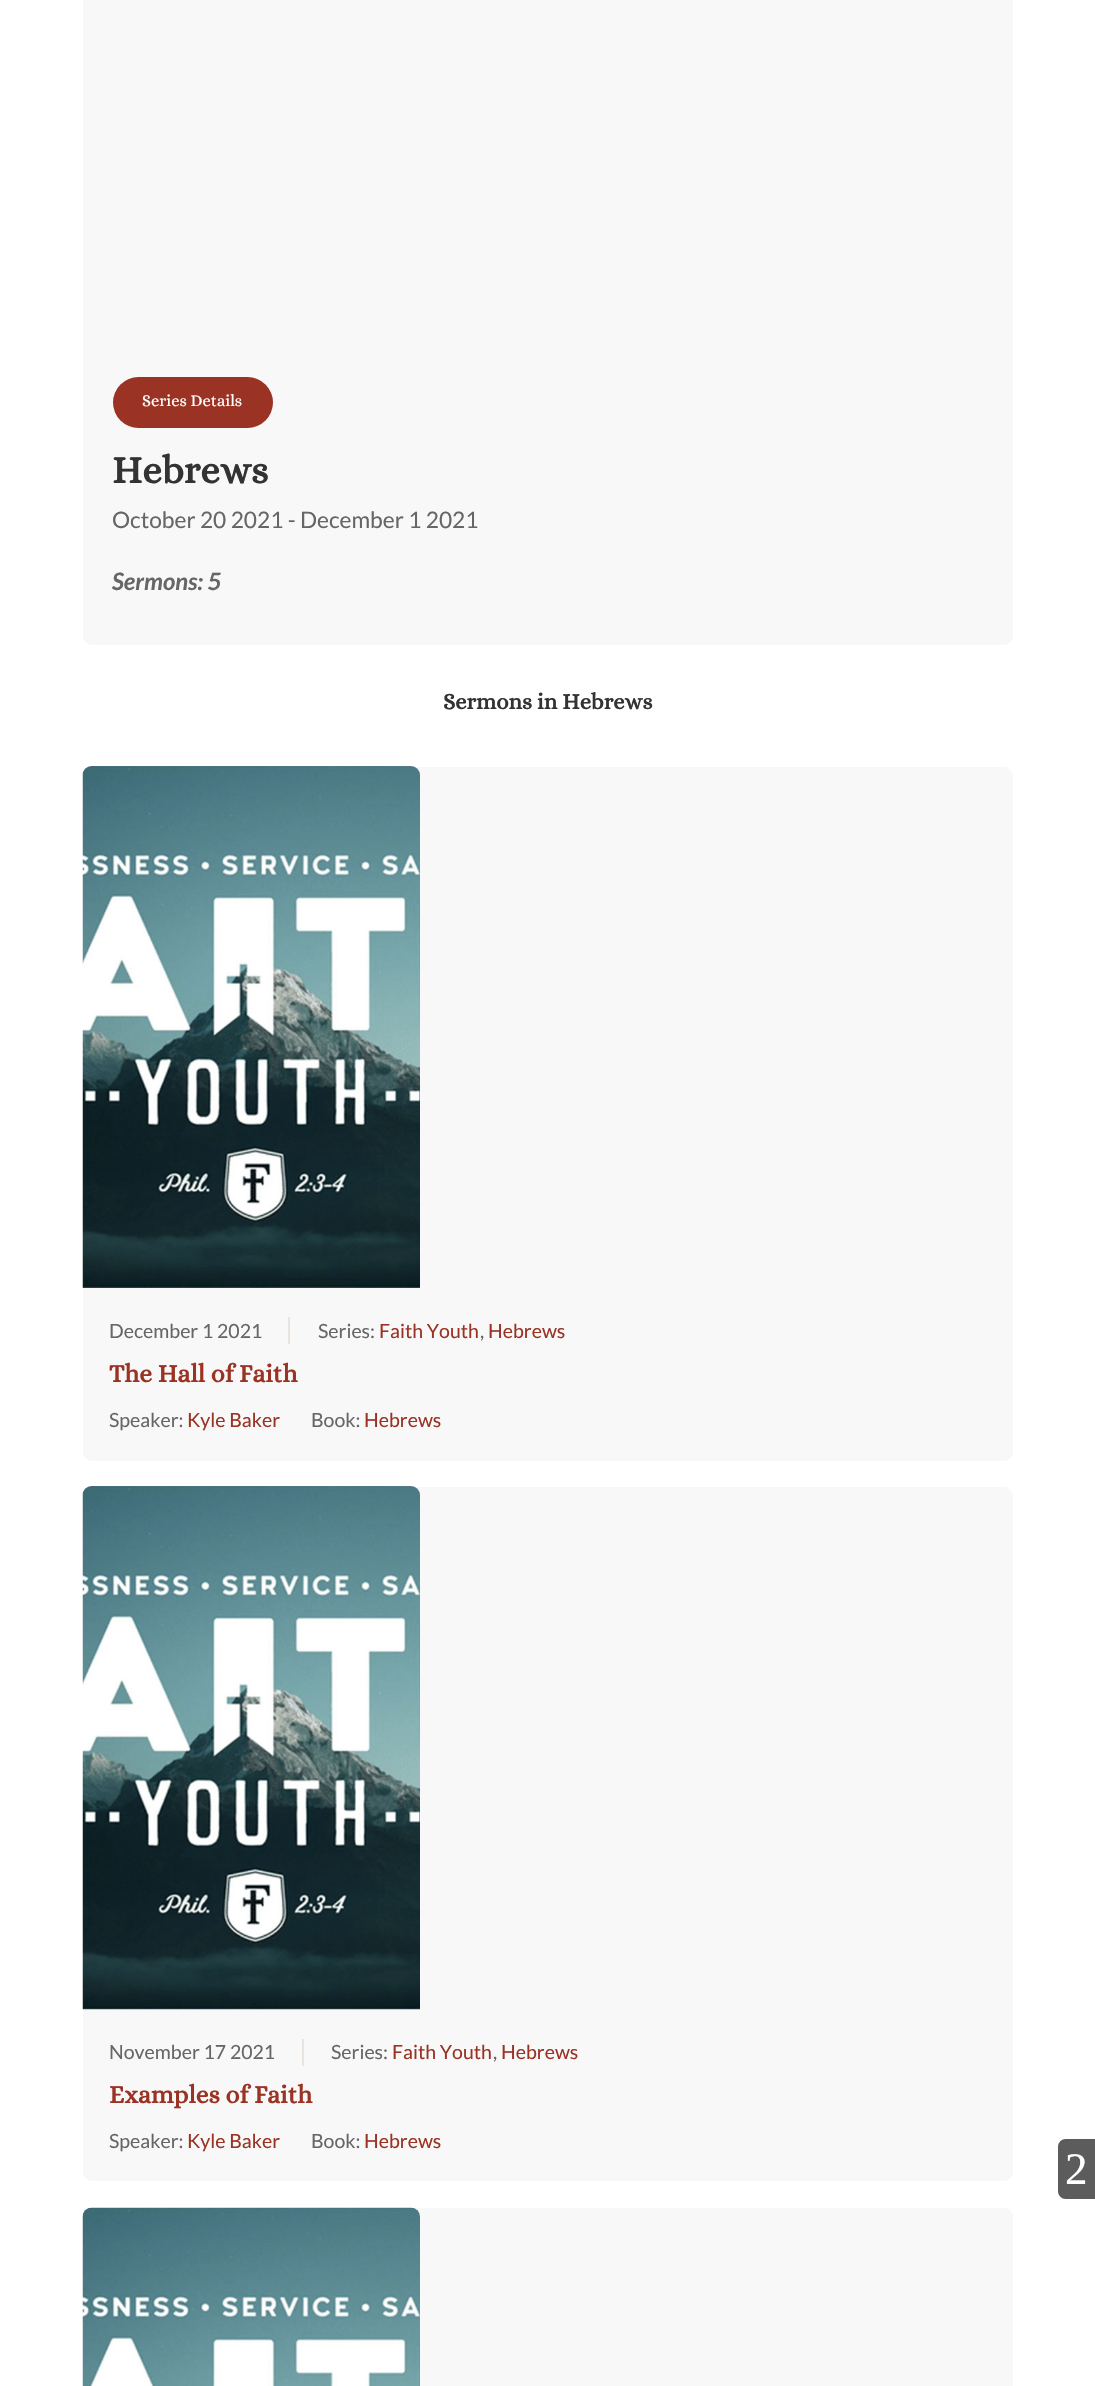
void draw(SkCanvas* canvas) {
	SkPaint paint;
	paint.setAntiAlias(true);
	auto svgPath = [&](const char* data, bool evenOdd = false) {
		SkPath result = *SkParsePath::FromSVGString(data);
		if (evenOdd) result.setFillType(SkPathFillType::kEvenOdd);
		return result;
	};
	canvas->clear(0xffffffff);
	paint.setColor(0xfff8f8f8);
	canvas->drawRoundRect(SkRect::MakeXYWH(83, -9, 930, 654), 9, 9, paint);
	paint.setColor(0xff9a3324);
	canvas->drawRoundRect(SkRect::MakeXYWH(113, 377, 160, 51), 25.5, 25.5, paint);
	SkFont f1(fontMgr->matchFamilyStyle("Alice", SkFontStyle::Normal()), 16.5);
	f1.setSubpixel(true);
	paint.setColor(0xffffffff);
	canvas->drawString("Series Details", 142, 406, f1, paint);
	SkFont f2(fontMgr->matchFamilyStyle("Alice", SkFontStyle::Bold()), 39);
	f2.setSubpixel(true);
	paint.setColor(0xff333333);
	canvas->drawString("Hebrews", 112, 483, f2, paint);
	SkFont f3(fontMgr->matchFamilyStyle("Lato", SkFontStyle::Normal()), 22.7);
	f3.setSubpixel(true);
	paint.setColor(0xff666666);
	canvas->drawString("October 20 2021 - December 1 2021", 112, 528, f3, paint);
	SkFont f4(fontMgr->matchFamilyStyle("Lato", SkFontStyle::BoldItalic()), 24);
	f4.setSubpixel(true);
	canvas->drawString("Sermons: 5", 112, 590, f4, paint);
	SkFont f5(fontMgr->matchFamilyStyle("Alice", SkFontStyle::Bold()), 22.5);
	f5.setSubpixel(true);
	paint.setColor(0xff333333);
	canvas->drawString("Sermons in Hebrews", 443, 709, f5, paint);
	paint.setColor(0xfff8f8f8);
	canvas->drawRoundRect(SkRect::MakeXYWH(83, 767, 930, 694), 9, 9, paint);
	canvas->drawImageRect(SkImages::DeferredFromEncodedData(SkData::MakeFromFileName("img1.png")), SkRect::MakeXYWH(82, 766, 338, 522), SkSamplingOptions());
	paint.setColor(0xffe9e5de);
	canvas->drawRect(SkRect::MakeXYWH(288, 1317, 2, 27), paint);
	SkFont f6(fontMgr->matchFamilyStyle("Lato", SkFontStyle::Normal()), 19.5);
	f6.setSubpixel(true);
	paint.setColor(0xff666666);
	canvas->drawString("December 1 2021", 109, 1338, f6, paint);
	canvas->drawString("Series:", 318, 1338, f6, paint);
	paint.setColor(0xff9a3324);
	canvas->drawString("Faith Youth", 379, 1338, f6, paint);
	paint.setColor(0xff666666);
	canvas->drawString(",", 480, 1338, f6, paint);
	paint.setColor(0xff9a3324);
	canvas->drawString("Hebrews", 488, 1338, f6, paint);
	SkFont f7(fontMgr->matchFamilyStyle("Alice", SkFontStyle::Bold()), 25.5);
	f7.setSubpixel(true);
	canvas->drawString("The Hall of Faith", 109, 1382, f7, paint);
	paint.setColor(0xff666666);
	canvas->drawString("Speaker:", 109, 1427, f6, paint);
	paint.setColor(0xff9a3324);
	canvas->drawString("Kyle Baker", 187, 1427, f6, paint);
	paint.setColor(0xff666666);
	canvas->drawString("Book:", 311, 1427, f6, paint);
	paint.setColor(0xff9a3324);
	canvas->drawString("Hebrews", 364, 1427, f6, paint);
	paint.setColor(0xfff8f8f8);
	canvas->drawRoundRect(SkRect::MakeXYWH(83, 1487, 930, 694), 9, 9, paint);
	canvas->drawImageRect(SkImages::DeferredFromEncodedData(SkData::MakeFromFileName("img2.png")), SkRect::MakeXYWH(82, 1486, 338, 524), SkSamplingOptions());
	paint.setColor(0xffe9e5de);
	canvas->drawRect(SkRect::MakeXYWH(302, 2039, 2, 27), paint);
	paint.setColor(0xff666666);
	canvas->drawString("November 17 2021", 109, 2059, f6, paint);
	canvas->drawString("Series:", 331, 2059, f6, paint);
	paint.setColor(0xff9a3324);
	canvas->drawString("Faith Youth", 392, 2059, f6, paint);
	paint.setColor(0xff666666);
	canvas->drawString(",", 493, 2059, f6, paint);
	paint.setColor(0xff9a3324);
	canvas->drawString("Hebrews", 501, 2059, f6, paint);
	canvas->drawString("Examples of Faith", 109, 2103, f7, paint);
	paint.setColor(0xff666666);
	canvas->drawString("Speaker:", 109, 2148, f6, paint);
	paint.setColor(0xff9a3324);
	canvas->drawString("Kyle Baker", 187, 2148, f6, paint);
	paint.setColor(0xff666666);
	canvas->drawString("Book:", 311, 2148, f6, paint);
	paint.setColor(0xff9a3324);
	canvas->drawString("Hebrews", 364, 2148, f6, paint);
	paint.setColor(0xfff8f8f8);
	canvas->drawRoundRect(SkRect::MakeXYWH(83, 2208, 930, 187), 9, 9, paint);
	canvas->drawImageRect(SkImages::DeferredFromEncodedData(SkData::MakeFromFileName("img3.png")), SkRect::MakeXYWH(82, 2207, 338, 179), SkSamplingOptions());
	paint.setColor(0xff999999);
	canvas->drawPath(svgPath("M1066 2139H1095V2199H1066C1061.5 2199 1058 2195.5 1058 2191V2147C1058 2142.5 1061.5 2139 1066 2139Z"), paint);
	SkFont f8(fontMgr->matchFamilyStyle("Liberation Serif", SkFontStyle::Normal()), 45);
	f8.setSubpixel(true);
	paint.setColor(0xffffffff);
	canvas->drawString("2", 1065, 2184, f8, paint);
	paint.setColor(0x66000000);
	canvas->drawPath(svgPath("M1066 2139H1095V2199H1066C1061.5 2199 1058 2195.5 1058 2191V2147C1058 2142.5 1061.5 2139 1066 2139Z"), paint);
	paint.setColor(0xffffffff);
	canvas->drawString("2", 1065, 2184, f8, paint);
}
